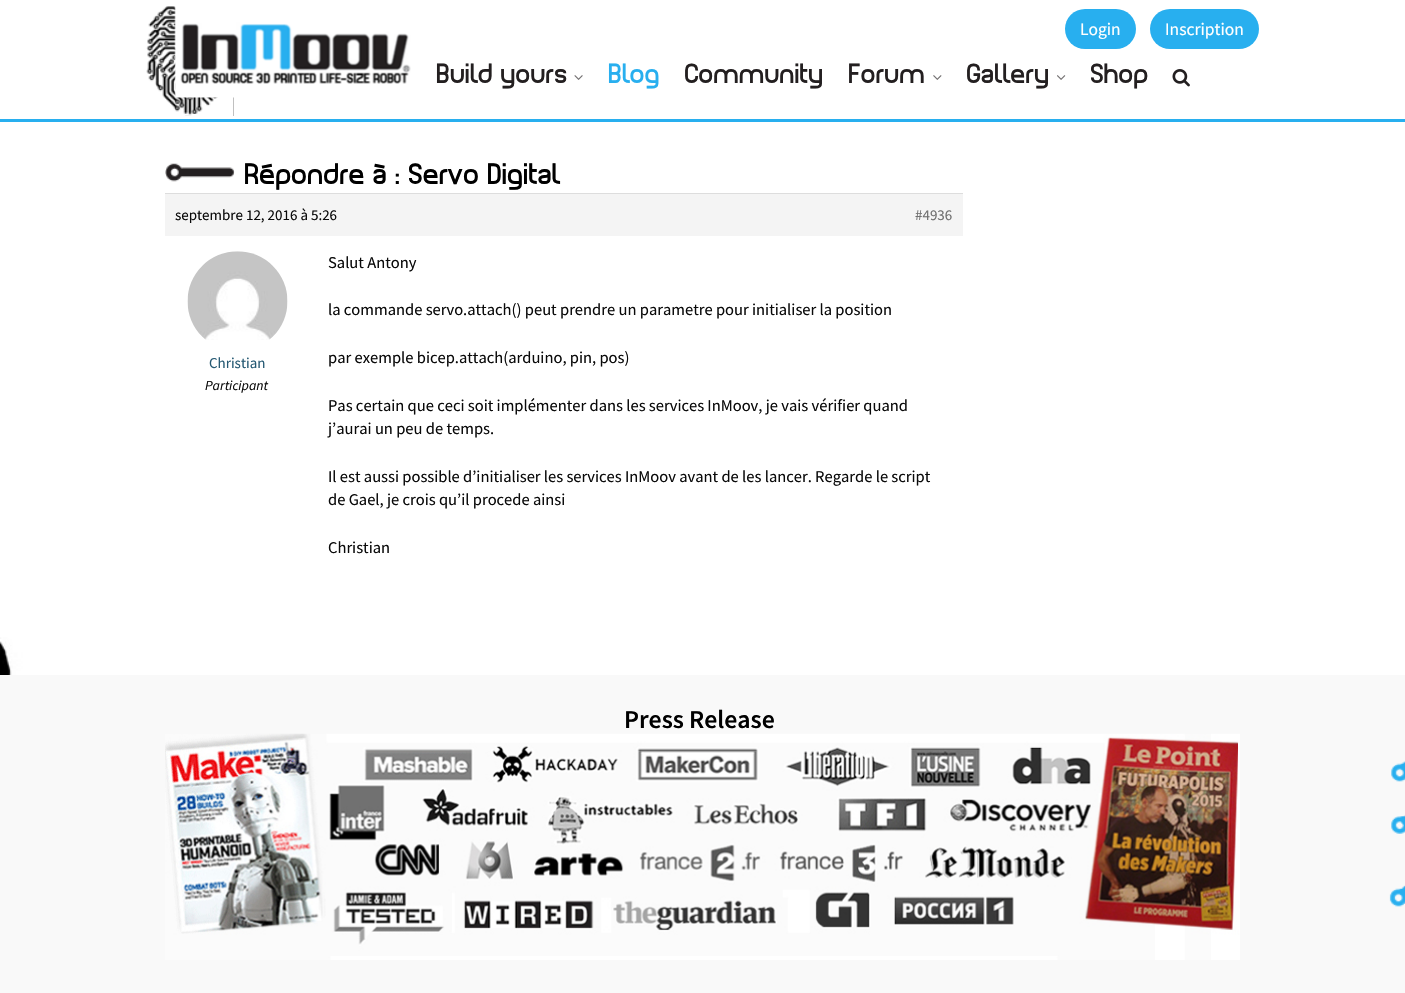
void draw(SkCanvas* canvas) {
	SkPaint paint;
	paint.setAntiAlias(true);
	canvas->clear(0xffffffff);
	canvas->drawImageRect(SkImages::DeferredFromEncodedData(SkData::MakeFromFileName("img1.png")), SkRect::MakeXYWH(0, 637, 23, 38), SkSamplingOptions());
	paint.setColor(0xff28afef);
	canvas->drawRect(SkRect::MakeXYWH(0, 119, 1405, 3), paint);
	paint.setColor(0xff000000);
	canvas->drawRect(SkRect::MakeXYWH(146, 6, 88, 110), paint);
	canvas->drawImageRect(SkImages::DeferredFromEncodedData(SkData::MakeFromFileName("img2.png")), SkRect::MakeXYWH(134, 3, 100, 113), SkSamplingOptions());
	canvas->drawImageRect(SkImages::DeferredFromEncodedData(SkData::MakeFromFileName("img3.png")), SkRect::MakeXYWH(174, 3, 237, 95), SkSamplingOptions());
	paint.setColor(0xff28afef);
	canvas->drawRoundRect(SkRect::MakeXYWH(1065, 9, 71, 40), 20, 20, paint);
	SkFont f1(fontMgr->matchFamilyStyle("Source Sans Pro", SkFontStyle::Normal()), 17.5);
	f1.setSubpixel(true);
	paint.setColor(0xffffffff);
	canvas->drawString("Login", 1080, 35, f1, paint);
	paint.setColor(0xff28afef);
	canvas->drawRoundRect(SkRect::MakeXYWH(1150, 9, 109, 40), 20, 20, paint);
	paint.setColor(0xffffffff);
	canvas->drawString("Inscription", 1165, 35, f1, paint);
	SkFont f2(fontMgr->matchFamilyStyle("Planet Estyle", SkFontStyle::Normal()), 26.25);
	f2.setSubpixel(true);
	paint.setColor(0xff231f20);
	canvas->drawString("Build yours", 437, 83, f2, paint);
	canvas->drawImageRect(SkImages::DeferredFromEncodedData(SkData::MakeFromFileName("img4.png")), SkRect::MakeXYWH(574, 75, 9, 5), SkSamplingOptions());
	paint.setColor(0xff28afef);
	canvas->drawString("Blog", 609, 83, f2, paint);
	paint.setColor(0xff231f20);
	canvas->drawString("Community", 685, 83, f2, paint);
	canvas->drawString("Forum", 849, 83, f2, paint);
	canvas->drawImageRect(SkImages::DeferredFromEncodedData(SkData::MakeFromFileName("img5.png")), SkRect::MakeXYWH(933, 75, 9, 5), SkSamplingOptions());
	canvas->drawString("Gallery", 967, 83, f2, paint);
	canvas->drawImageRect(SkImages::DeferredFromEncodedData(SkData::MakeFromFileName("img6.png")), SkRect::MakeXYWH(1057, 75, 9, 5), SkSamplingOptions());
	canvas->drawString("Shop", 1091, 83, f2, paint);
	canvas->drawImageRect(SkImages::DeferredFromEncodedData(SkData::MakeFromFileName("img7.png")), SkRect::MakeXYWH(1172, 69, 18, 18), SkSamplingOptions());
	canvas->drawImageRect(SkImages::DeferredFromEncodedData(SkData::MakeFromFileName("img8.png")), SkRect::MakeXYWH(165, 163, 70, 19), SkSamplingOptions());
	SkFont f3(fontMgr->matchFamilyStyle("Planet Estyle", SkFontStyle::Normal()), 28.1);
	f3.setSubpixel(true);
	paint.setColor(0xff000000);
	canvas->drawString("Répondre à : Servo Digital", 245, 184, f3, paint);
	paint.setColor(0xfff4f4f4);
	canvas->drawRect(SkRect::MakeXYWH(165, 194, 798, 42), paint);
	paint.setColor(0xffdddddd);
	canvas->drawRect(SkRect::MakeXYWH(165, 193, 798, 1), paint);
	SkFont f4(fontMgr->matchFamilyStyle("Source Sans Pro", SkFontStyle::Normal()), 15);
	f4.setSubpixel(true);
	paint.setColor(0xff0a0a0a);
	canvas->drawString("septembre 12, 2016 à 5:26", 175, 220, f4, paint);
	paint.setColor(0xff707070);
	canvas->drawString("#4936", 915, 220, f4, paint);
	canvas->drawImageRect(SkImages::DeferredFromEncodedData(SkData::MakeFromFileName("img9.png")), SkRect::MakeXYWH(187, 251, 101, 89), SkSamplingOptions());
	paint.setColor(0xff255973);
	canvas->drawString("Christian", 209, 368, f4, paint);
	SkFont f5(fontMgr->matchFamilyStyle("Source Sans Pro", SkFontStyle::Italic()), 13.75);
	f5.setSubpixel(true);
	paint.setColor(0xff0a0a0a);
	canvas->drawString("Participant", 205, 390, f5, paint);
	SkFont f6(fontMgr->matchFamilyStyle("Source Sans Pro", SkFontStyle::Normal()), 16.5);
	f6.setSubpixel(true);
	canvas->drawString("Salut Antony", 328, 268, f6, paint);
	canvas->drawString("la commande servo.attach() peut prendre un parametre pour initialiser la position", 328, 315, f6, paint);
	canvas->drawString("par exemple bicep.attach(arduino, pin, pos)", 328, 363, f6, paint);
	canvas->drawString("Pas certain que ceci soit implémenter dans les services InMoov, je vais vérifier quand", 328, 411, f6, paint);
	canvas->drawString("j’aurai un peu de temps.", 328, 434, f6, paint);
	canvas->drawString("Il est aussi possible d’initialiser les services InMoov avant de les lancer. Regarde le script", 328, 482, f6, paint);
	canvas->drawString("de Gael, je crois qu’il procede ainsi", 328, 505, f6, paint);
	canvas->drawString("Christian", 328, 553, f6, paint);
	paint.setColor(0xfff9f9f9);
	canvas->drawRect(SkRect::MakeXYWH(0, 675, 1405, 318), paint);
	canvas->drawImageRect(SkImages::DeferredFromEncodedData(SkData::MakeFromFileName("img10.png")), SkRect::MakeXYWH(1389, 761, 16, 146), SkSamplingOptions());
	SkFont f7(fontMgr->matchFamilyStyle("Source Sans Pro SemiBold", SkFontStyle(600, SkFontStyle::kNormal_Width, SkFontStyle::kUpright_Slant)), 25.75);
	f7.setSubpixel(true);
	paint.setColor(0xff000000);
	canvas->drawString("Press Release", 624, 728, f7, paint);
	canvas->drawImageRect(SkImages::DeferredFromEncodedData(SkData::MakeFromFileName("img11.png")), SkRect::MakeXYWH(165, 733, 1075, 227), SkSamplingOptions());
}
